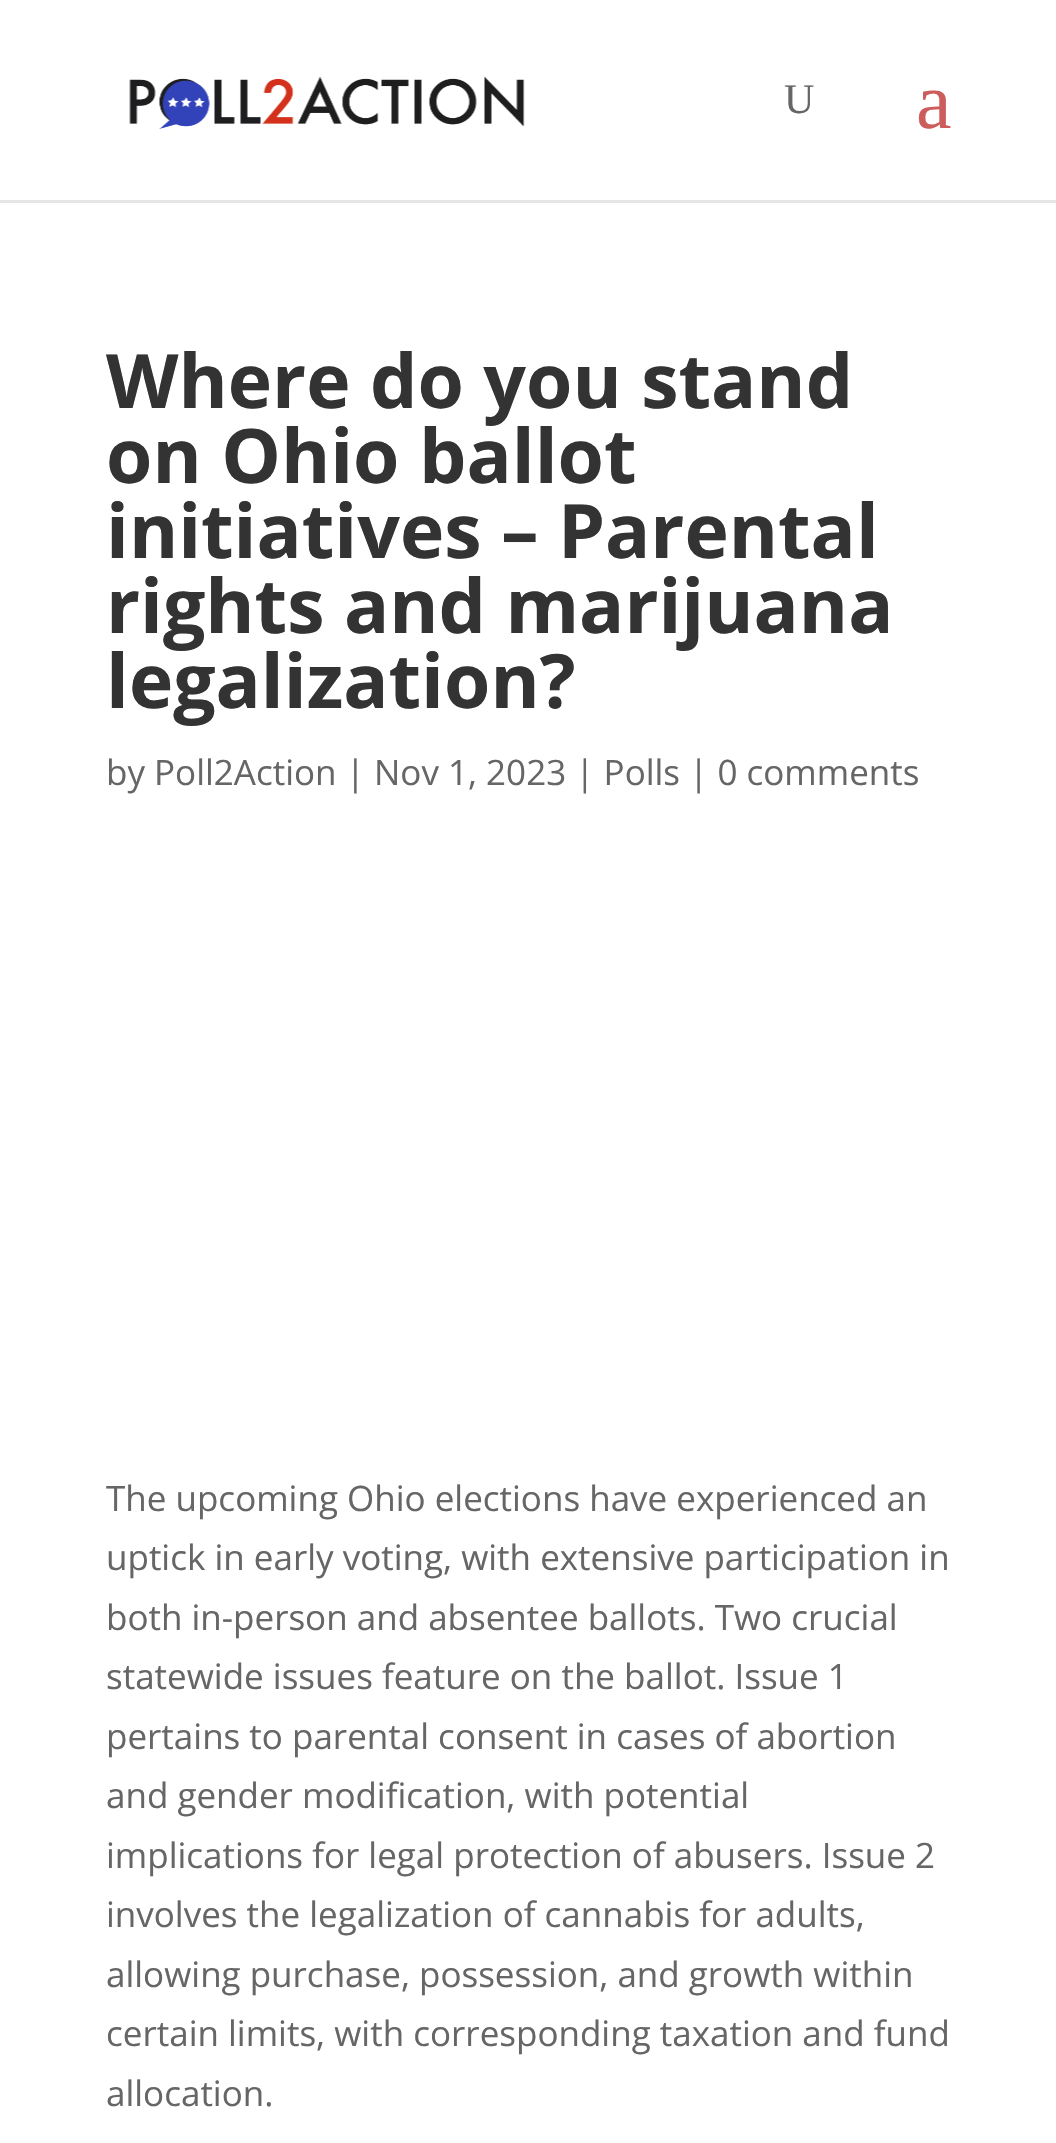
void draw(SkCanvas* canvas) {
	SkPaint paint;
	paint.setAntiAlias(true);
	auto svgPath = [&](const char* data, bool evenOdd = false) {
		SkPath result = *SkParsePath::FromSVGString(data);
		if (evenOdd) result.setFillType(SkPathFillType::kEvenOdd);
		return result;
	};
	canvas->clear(0xffffffff);
	paint.setColor(0xffe6e6e6);
	canvas->drawPath(svgPath("M0 200V203H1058V3V200Z"), paint);
	canvas->drawImageRect(SkImages::DeferredFromEncodedData(SkData::MakeFromFileName("img1.png")), SkRect::MakeXYWH(129, 76, 396, 53), SkSamplingOptions());
	SkFont f1(fontMgr->matchFamilyStyle("Liberation Serif", SkFontStyle::Normal()), 42);
	f1.setSubpixel(true);
	paint.setColor(0xff666666);
	canvas->drawString("U", 784, 113, f1, paint);
	SkFont f2(fontMgr->matchFamilyStyle("Liberation Serif", SkFontStyle::Normal()), 80);
	f2.setSubpixel(true);
	paint.setColor(0xffcd5c5c);
	canvas->drawString("a", 916, 128, f2, paint);
	SkFont f3(fontMgr->matchFamilyStyle("Open Sans", SkFontStyle::Bold()), 75);
	f3.setSubpixel(true);
	paint.setColor(0xff333333);
	canvas->drawString("Where do you stand", 106, 408, f3, paint);
	canvas->drawString("on Ohio ballot", 106, 483, f3, paint);
	canvas->drawString("initiatives – Parental", 106, 558, f3, paint);
	canvas->drawString("rights and marijuana", 106, 633, f3, paint);
	canvas->drawString("legalization?", 106, 708, f3, paint);
	SkFont f4(fontMgr->matchFamilyStyle("Open Sans", SkFontStyle::Normal()), 35);
	f4.setSubpixel(true);
	paint.setColor(0xff666666);
	canvas->drawString("by Poll2Action | Nov 1, 2023 | Polls | 0 comments", 106, 785, f4, paint);
	canvas->drawString("The upcoming Ohio elections have experienced an", 106, 1511, f4, paint);
	canvas->drawString("uptick in early voting, with extensive participation in", 106, 1570, f4, paint);
	canvas->drawString("both in-person and absentee ballots. Two crucial", 106, 1630, f4, paint);
	canvas->drawString("statewide issues feature on the ballot. Issue 1", 106, 1689, f4, paint);
	canvas->drawString("pertains to parental consent in cases of abortion", 106, 1749, f4, paint);
	canvas->drawString("and gender modification, with potential", 106, 1808, f4, paint);
	canvas->drawString("implications for legal protection of abusers. Issue 2", 106, 1868, f4, paint);
	canvas->drawString("involves the legalization of cannabis for adults,", 106, 1927, f4, paint);
	canvas->drawString("allowing purchase, possession, and growth within", 106, 1987, f4, paint);
	canvas->drawString("certain limits, with corresponding taxation and fund", 106, 2046, f4, paint);
	canvas->drawString("allocation.", 106, 2106, f4, paint);
}
